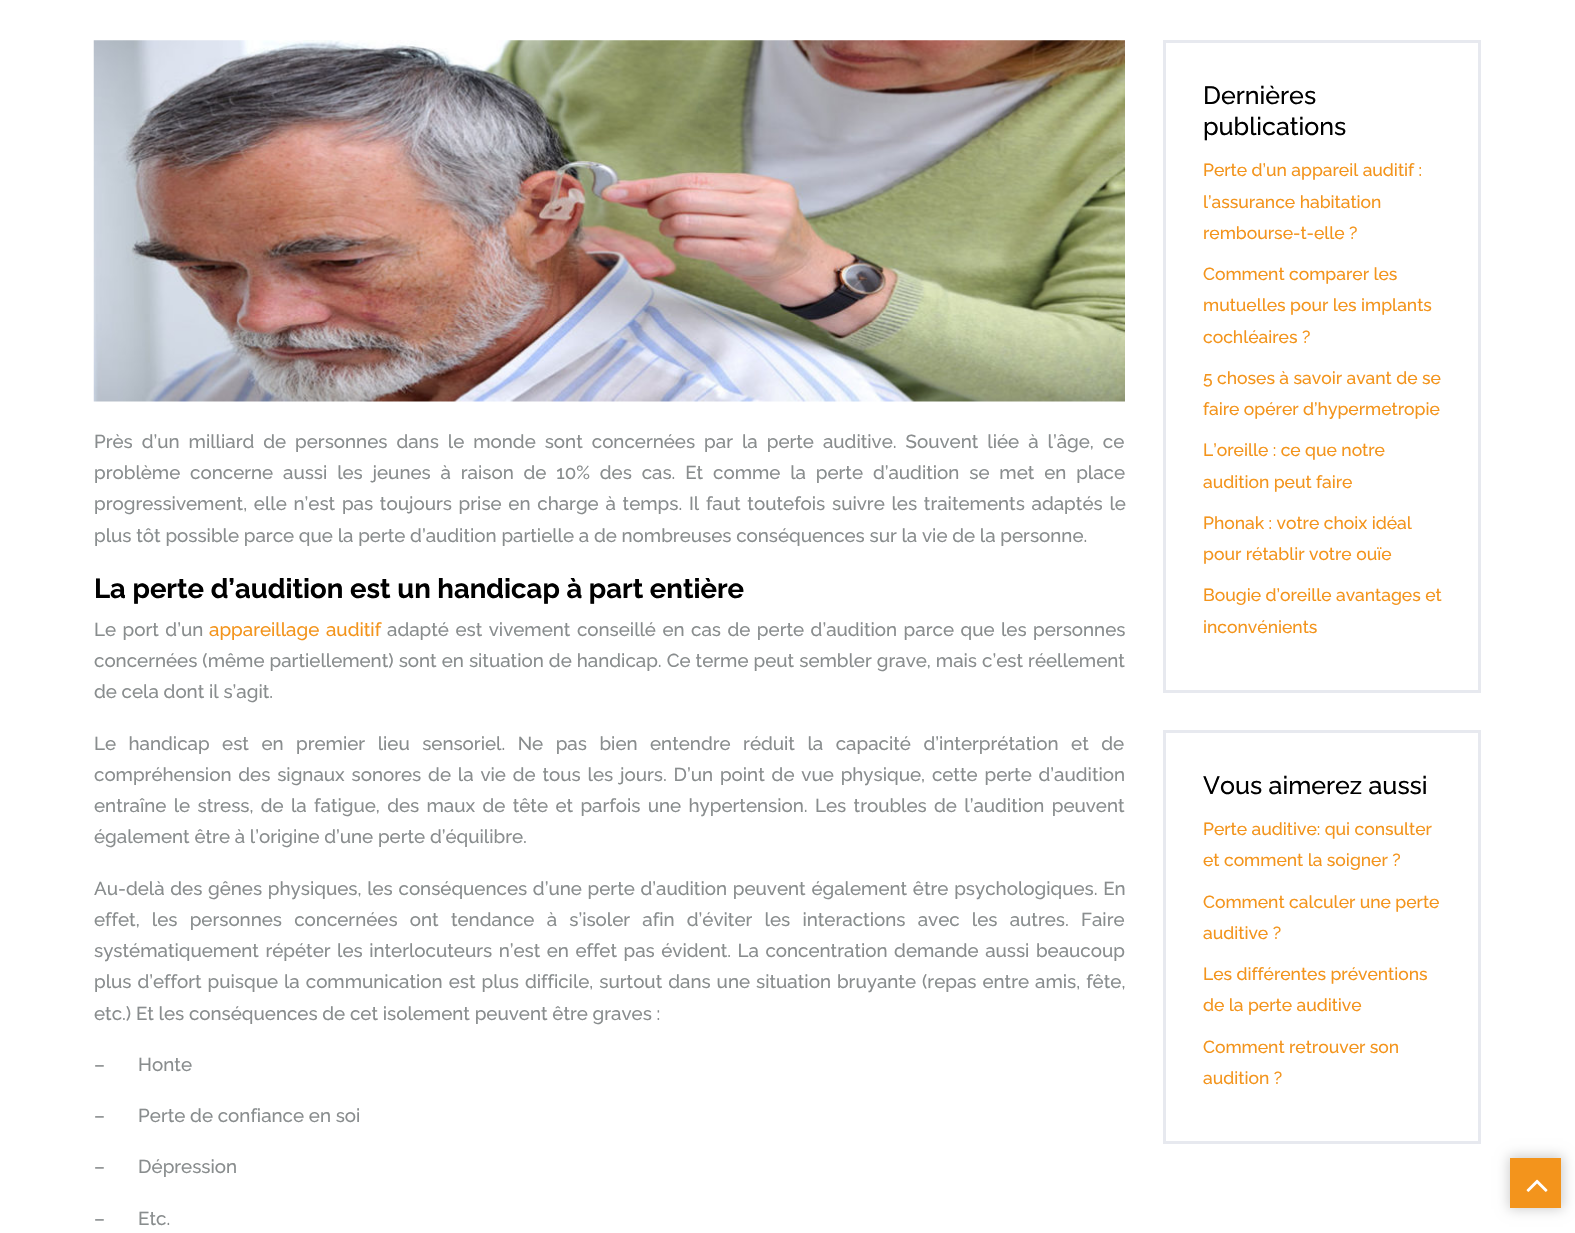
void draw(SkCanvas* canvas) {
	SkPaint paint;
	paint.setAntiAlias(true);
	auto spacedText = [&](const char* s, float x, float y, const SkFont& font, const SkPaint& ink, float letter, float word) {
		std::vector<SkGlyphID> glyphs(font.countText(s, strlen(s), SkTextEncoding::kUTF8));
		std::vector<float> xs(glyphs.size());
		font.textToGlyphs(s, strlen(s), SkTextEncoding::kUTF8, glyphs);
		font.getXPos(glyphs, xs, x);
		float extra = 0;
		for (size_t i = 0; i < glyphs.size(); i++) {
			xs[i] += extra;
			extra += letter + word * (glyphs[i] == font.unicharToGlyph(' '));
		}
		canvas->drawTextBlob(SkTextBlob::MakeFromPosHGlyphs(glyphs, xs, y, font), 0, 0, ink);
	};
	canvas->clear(0xffffffff);
	canvas->drawImageRect(SkImages::DeferredFromEncodedData(SkData::MakeFromFileName("img1.png")), SkRect::MakeXYWH(93, 40, 1032, 362), SkSamplingOptions());
	SkFont f1(fontMgr->matchFamilyStyle("Raleway", SkFontStyle(500, SkFontStyle::kNormal_Width, SkFontStyle::kUpright_Slant)), 18.75);
	f1.setSubpixel(true);
	paint.setColor(0xff898d8e);
	spacedText("Près d’un milliard de personnes dans le monde sont concernées par la perte auditive. Souvent liée à l’âge, ce", 94, 448, f1, paint, 0, 4.25);
	spacedText("problème concerne aussi les jeunes à raison de 10% des cas. Et comme la perte d’audition se met en place", 94, 479, f1, paint, 0, 5.1);
	spacedText("progressivement, elle n’est pas toujours prise en charge à temps. Il faut toutefois suivre les traitements adaptés le", 94, 510, f1, paint, 0, 2);
	canvas->drawString("plus tôt possible parce que la perte d’audition partielle a de nombreuses conséquences sur la vie de la personne.", 94, 542, f1, paint);
	SkFont f2(fontMgr->matchFamilyStyle("Raleway", SkFontStyle::Bold()), 27.5);
	f2.setSubpixel(true);
	paint.setColor(0xff000000);
	canvas->drawString("La perte d’audition est un handicap à part entière", 94, 598, f2, paint);
	paint.setColor(0xff898d8e);
	spacedText("Le port d’un", 94, 636, f1, paint, 0, 1.75);
	paint.setColor(0xfff3941c);
	spacedText("appareillage auditif", 209, 636, f1, paint, 0, 2);
	paint.setColor(0xff898d8e);
	spacedText("adapté est vivement conseillé en cas de perte d’audition parce que les personnes", 387, 636, f1, paint, 0, 1.75);
	spacedText("concernées (même partiellement) sont en situation de handicap. Ce terme peut sembler grave, mais c’est réellement", 94, 667, f1, paint, 0, 0.3);
	canvas->drawString("de cela dont il s’agit.", 94, 698, f1, paint);
	spacedText("Le handicap est en premier lieu sensoriel. Ne pas bien entendre réduit la capacité d’interprétation et de", 94, 750, f1, paint, 0, 7.75);
	spacedText("compréhension des signaux sonores de la vie de tous les jours. D’un point de vue physique, cette perte d’audition", 94, 781, f1, paint, 0, 2.1);
	spacedText("entraîne le stress, de la fatigue, des maux de tête et parfois une hypertension. Les troubles de l’audition peuvent", 94, 812, f1, paint, 0, 2.6);
	canvas->drawString("également être à l’origine d’une perte d’équilibre.", 94, 843, f1, paint);
	spacedText("Au-delà des gênes physiques, les conséquences d’une perte d’audition peuvent également être psychologiques. En", 94, 895, f1, paint, 0, 1);
	spacedText("effet, les personnes concernées ont tendance à s’isoler afin d’éviter les interactions avec les autres. Faire", 94, 926, f1, paint, 0, 7.5);
	spacedText("systématiquement répéter les interlocuteurs n’est en effet pas évident. La concentration demande aussi beaucoup", 94, 957, f1, paint, 0, 1.75);
	spacedText("plus d’effort puisque la communication est plus difficile, surtout dans une situation bruyante (repas entre amis, fête,", 94, 988, f1, paint, 0, 1.25);
	canvas->drawString("etc.) Et les conséquences de cet isolement peuvent être graves :", 94, 1020, f1, paint);
	canvas->drawString("–       Honte", 94, 1071, f1, paint);
	canvas->drawString("–       Perte de confiance en soi", 94, 1122, f1, paint);
	canvas->drawString("–       Dépression", 94, 1173, f1, paint);
	canvas->drawString("–       Etc.", 94, 1225, f1, paint);
	paint.setStroke(true);
	paint.setStrokeWidth(3);
	paint.setColor(0xffe7e9ef);
	canvas->drawRect(SkRect::MakeXYWH(1164.5, 41.5, 315, 650), paint);
	SkFont f3(fontMgr->matchFamilyStyle("Raleway", SkFontStyle(500, SkFontStyle::kNormal_Width, SkFontStyle::kUpright_Slant)), 25);
	f3.setSubpixel(true);
	paint.setStroke(false);
	paint.setColor(0xff000000);
	canvas->drawString("Dernières", 1203, 104, f3, paint);
	canvas->drawString("publications", 1203, 135, f3, paint);
	SkFont f4(fontMgr->matchFamilyStyle("Raleway", SkFontStyle(500, SkFontStyle::kNormal_Width, SkFontStyle::kUpright_Slant)), 17.5);
	f4.setSubpixel(true);
	paint.setColor(0xfff3941c);
	canvas->drawString("Perte d’un appareil auditif :", 1203, 176, f4, paint);
	canvas->drawString("l’assurance habitation", 1203, 208, f4, paint);
	canvas->drawString("rembourse-t-elle ?", 1203, 239, f4, paint);
	canvas->drawString("Comment comparer les", 1203, 280, f4, paint);
	canvas->drawString("mutuelles pour les implants", 1203, 311, f4, paint);
	canvas->drawString("cochléaires ?", 1203, 343, f4, paint);
	canvas->drawString("5 choses à savoir avant de se", 1203, 384, f4, paint);
	canvas->drawString("faire opérer d’hypermetropie", 1203, 415, f4, paint);
	canvas->drawString("L’oreille : ce que notre", 1203, 456, f4, paint);
	canvas->drawString("audition peut faire", 1203, 488, f4, paint);
	canvas->drawString("Phonak : votre choix idéal", 1203, 529, f4, paint);
	canvas->drawString("pour rétablir votre ouïe", 1203, 560, f4, paint);
	canvas->drawString("Bougie d’oreille avantages et", 1203, 601, f4, paint);
	canvas->drawString("inconvénients", 1203, 633, f4, paint);
	paint.setStroke(true);
	paint.setColor(0xffe7e9ef);
	canvas->drawRect(SkRect::MakeXYWH(1164.5, 731.5, 315, 411), paint);
	paint.setStroke(false);
	paint.setColor(0xff000000);
	canvas->drawString("Vous aimerez aussi", 1203, 794, f3, paint);
	paint.setColor(0xfff3941c);
	canvas->drawString("Perte auditive: qui consulter", 1203, 835, f4, paint);
	canvas->drawString("et comment la soigner ?", 1203, 866, f4, paint);
	canvas->drawString("Comment calculer une perte", 1203, 908, f4, paint);
	canvas->drawString("auditive ?", 1203, 939, f4, paint);
	canvas->drawString("Les différentes préventions", 1203, 980, f4, paint);
	canvas->drawString("de la perte auditive", 1203, 1011, f4, paint);
	canvas->drawString("Comment retrouver son", 1203, 1053, f4, paint);
	canvas->drawString("audition ?", 1203, 1084, f4, paint);
	paint.setColor(0x33000000);
	paint.setMaskFilter(SkMaskFilter::MakeBlur(kNormal_SkBlurStyle, 6));
	canvas->drawRect(SkRect::MakeXYWH(1509, 1156, 54, 53), paint);
	paint.setMaskFilter(nullptr);
	paint.setColor(0xfff3941c);
	canvas->drawRect(SkRect::MakeXYWH(1510, 1158, 51, 50), paint);
	canvas->drawImageRect(SkImages::DeferredFromEncodedData(SkData::MakeFromFileName("img2.png")), SkRect::MakeXYWH(1526, 1179, 22, 13), SkSamplingOptions());
}
